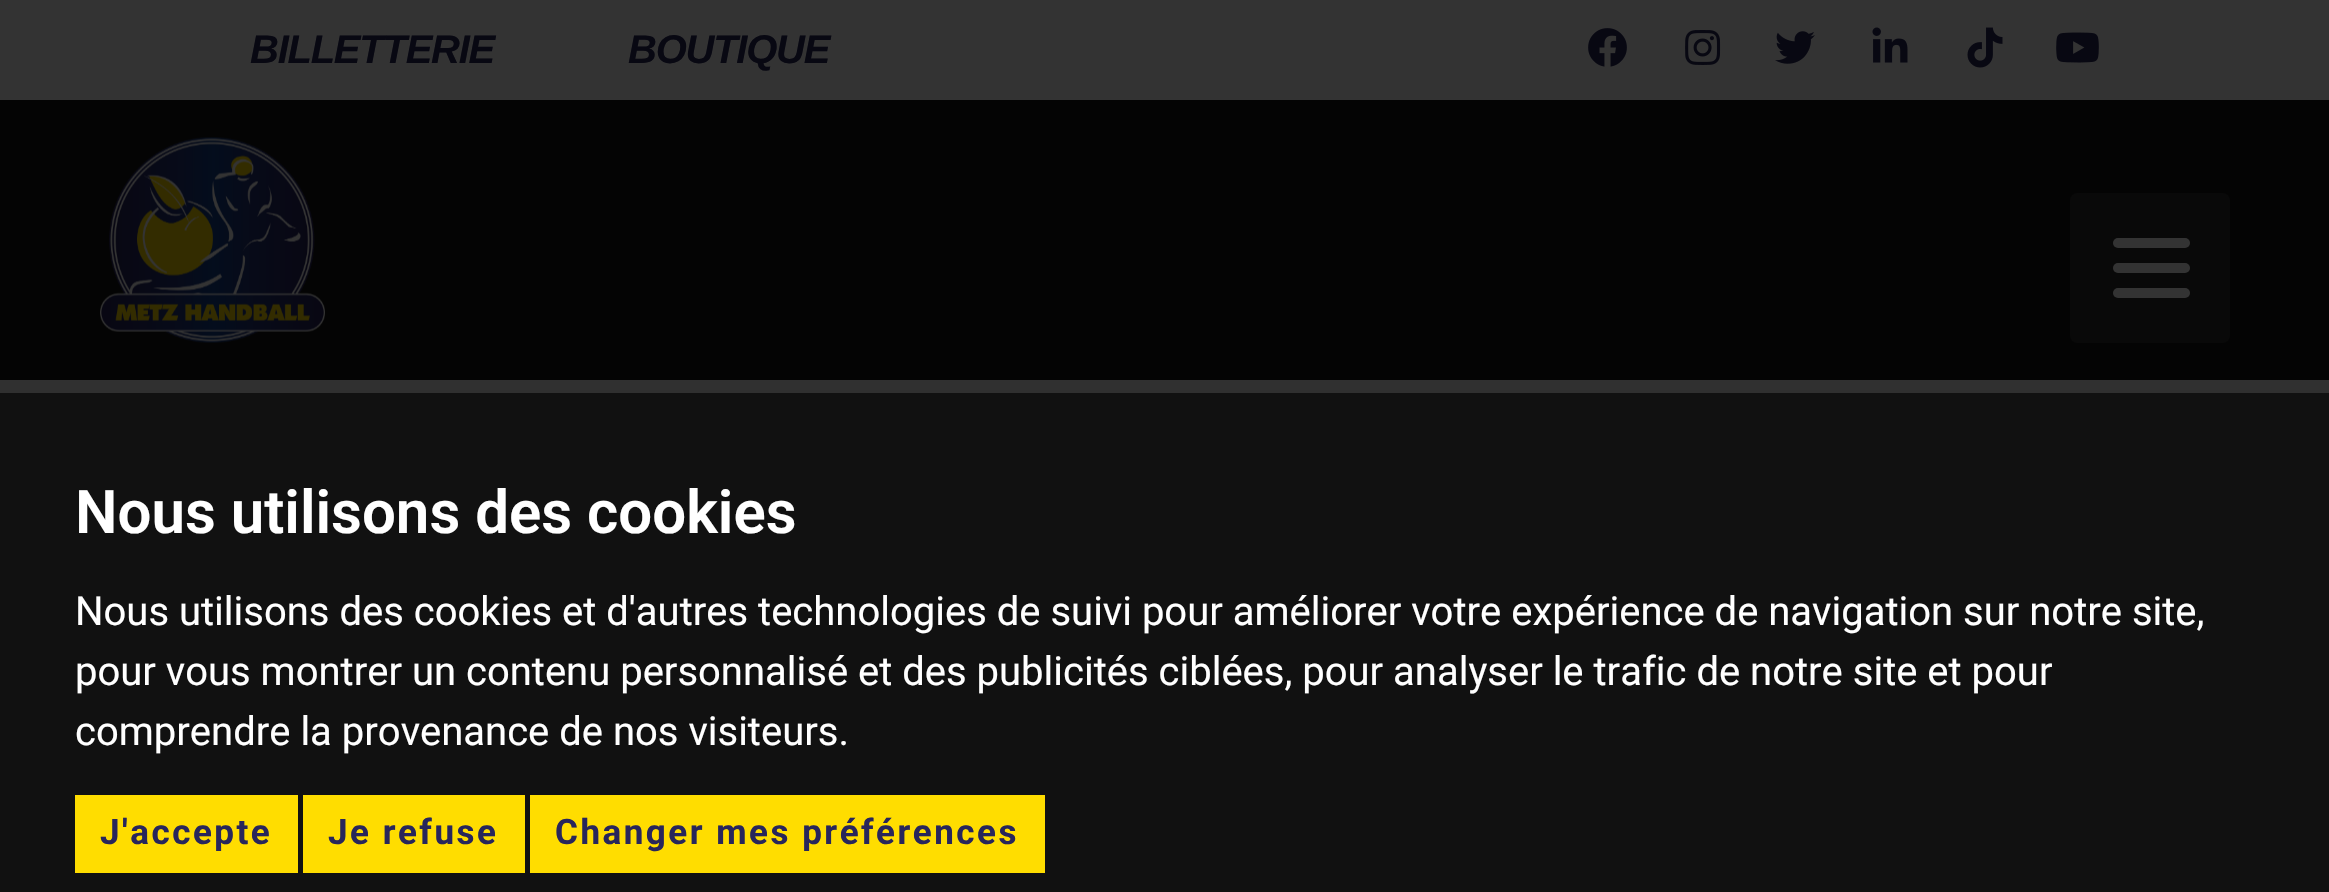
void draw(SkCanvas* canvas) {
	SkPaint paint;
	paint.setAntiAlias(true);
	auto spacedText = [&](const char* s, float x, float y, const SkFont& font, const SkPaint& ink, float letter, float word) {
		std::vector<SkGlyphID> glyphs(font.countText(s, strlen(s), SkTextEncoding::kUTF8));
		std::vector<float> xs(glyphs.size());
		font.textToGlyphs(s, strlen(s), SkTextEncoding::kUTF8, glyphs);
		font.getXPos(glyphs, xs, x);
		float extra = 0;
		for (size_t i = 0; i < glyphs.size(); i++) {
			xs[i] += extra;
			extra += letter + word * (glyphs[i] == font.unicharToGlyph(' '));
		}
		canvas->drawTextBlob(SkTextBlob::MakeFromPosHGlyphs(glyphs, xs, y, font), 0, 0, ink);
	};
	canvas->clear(0xff333333);
	SkFont f1(fontMgr->matchFamilyStyle("Liberation Sans", SkFontStyle::BoldItalic()), 40);
	f1.setSubpixel(true);
	paint.setColor(0xff080812);
	spacedText("BILLETTERIE", 250, 63, f1, paint, -1.25, 0);
	spacedText("BOUTIQUE", 628, 63, f1, paint, -1.25, 0);
	canvas->drawImageRect(SkImages::DeferredFromEncodedData(SkData::MakeFromFileName("img1.png")), SkRect::MakeXYWH(1588, 28, 39, 39), SkSamplingOptions());
	canvas->drawImageRect(SkImages::DeferredFromEncodedData(SkData::MakeFromFileName("img2.png")), SkRect::MakeXYWH(1685, 30, 36, 35), SkSamplingOptions());
	canvas->drawImageRect(SkImages::DeferredFromEncodedData(SkData::MakeFromFileName("img3.png")), SkRect::MakeXYWH(1775, 31, 40, 33), SkSamplingOptions());
	canvas->drawImageRect(SkImages::DeferredFromEncodedData(SkData::MakeFromFileName("img4.png")), SkRect::MakeXYWH(1872, 27, 36, 36), SkSamplingOptions());
	canvas->drawImageRect(SkImages::DeferredFromEncodedData(SkData::MakeFromFileName("img5.png")), SkRect::MakeXYWH(1967, 27, 36, 41), SkSamplingOptions());
	canvas->drawImageRect(SkImages::DeferredFromEncodedData(SkData::MakeFromFileName("img6.png")), SkRect::MakeXYWH(2056, 32, 43, 31), SkSamplingOptions());
	paint.setColor(0xff040404);
	canvas->drawRect(SkRect::MakeXYWH(0, 100, 2329, 280), paint);
	canvas->drawImageRect(SkImages::DeferredFromEncodedData(SkData::MakeFromFileName("img7.png")), SkRect::MakeXYWH(100, 137, 225, 206), SkSamplingOptions());
	paint.setColor(0xff090909);
	canvas->drawRoundRect(SkRect::MakeXYWH(2070, 193, 160, 150), 8, 8, paint);
	paint.setColor(0xff333333);
	canvas->drawRoundRect(SkRect::MakeXYWH(2113, 238, 77, 10), 5, 5, paint);
	canvas->drawRoundRect(SkRect::MakeXYWH(2113, 263, 77, 10), 5, 5, paint);
	canvas->drawRoundRect(SkRect::MakeXYWH(2113, 288, 77, 10), 5, 5, paint);
	paint.setColor(0xff303030);
	canvas->drawRect(SkRect::MakeXYWH(0, 380, 2329, 13), paint);
	paint.setColor(0xff111111);
	canvas->drawRect(SkRect::MakeXYWH(0, 393, 2329, 499), paint);
	SkFont f2(fontMgr->matchFamilyStyle("Roboto", SkFontStyle(600, SkFontStyle::kNormal_Width, SkFontStyle::kUpright_Slant)), 60);
	f2.setSubpixel(true);
	paint.setColor(0xffffffff);
	canvas->drawString("Nous utilisons des cookies", 75, 533, f2, paint);
	SkFont f3(fontMgr->matchFamilyStyle("Roboto", SkFontStyle::Normal()), 40);
	f3.setSubpixel(true);
	canvas->drawString("Nous utilisons des cookies et d'autres technologies de suivi pour améliorer votre expérience de navigation sur notre site,", 75, 625, f3, paint);
	canvas->drawString("pour vous montrer un contenu personnalisé et des publicités ciblées, pour analyser le trafic de notre site et pour", 75, 685, f3, paint);
	canvas->drawString("comprendre la provenance de nos visiteurs.", 75, 745, f3, paint);
	paint.setColor(0xffffdd00);
	canvas->drawRect(SkRect::MakeXYWH(75, 795, 223, 78), paint);
	SkFont f4(fontMgr->matchFamilyStyle("Roboto", SkFontStyle::Bold()), 35);
	f4.setSubpixel(true);
	paint.setColor(0xff28265b);
	spacedText("J'accepte", 100, 844, f4, paint, 2.5, 0);
	paint.setColor(0xffffdd00);
	canvas->drawRect(SkRect::MakeXYWH(303, 795, 222, 78), paint);
	paint.setColor(0xff28265b);
	spacedText("Je refuse", 328, 844, f4, paint, 2.5, 0);
	paint.setColor(0xffffdd00);
	canvas->drawRect(SkRect::MakeXYWH(530, 795, 515, 78), paint);
	paint.setColor(0xff28265b);
	spacedText("Changer mes préférences", 555, 844, f4, paint, 2.5, 0);
}
